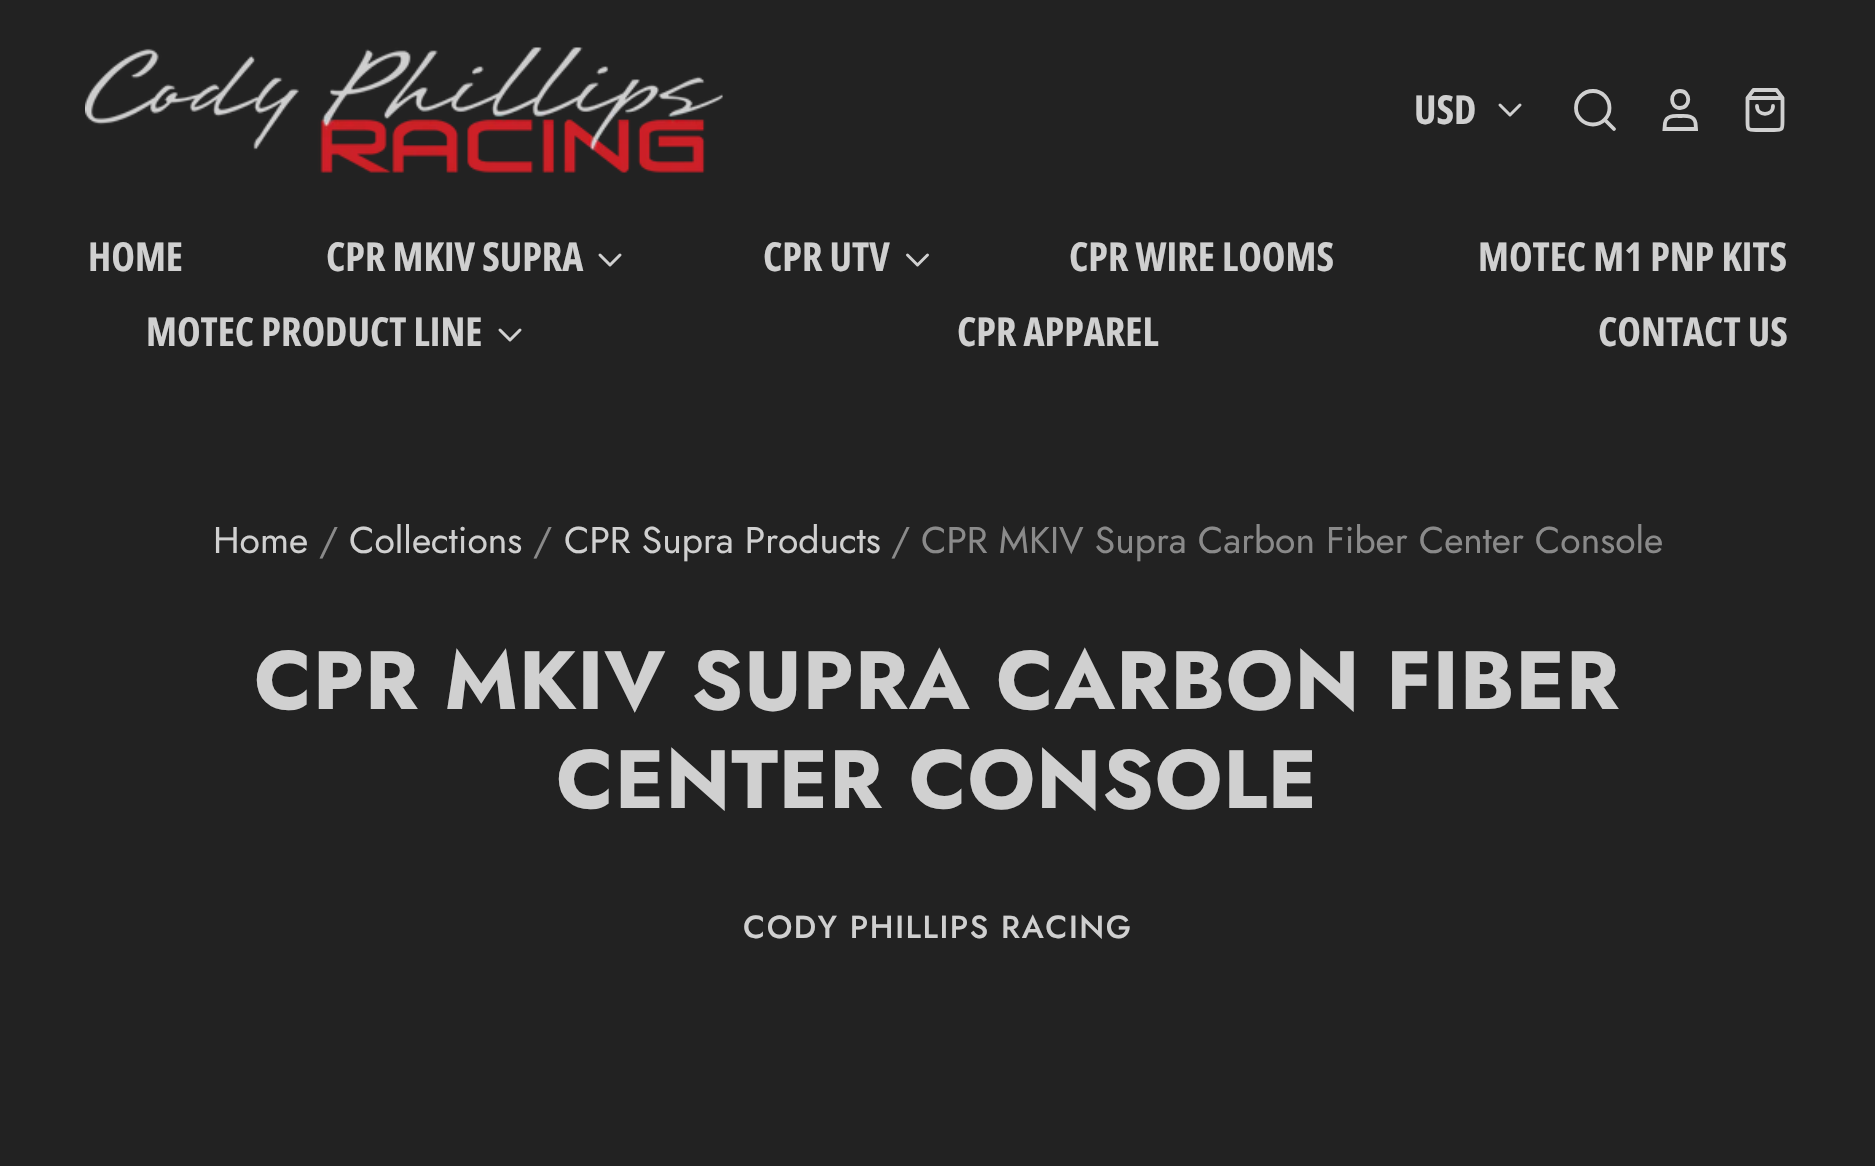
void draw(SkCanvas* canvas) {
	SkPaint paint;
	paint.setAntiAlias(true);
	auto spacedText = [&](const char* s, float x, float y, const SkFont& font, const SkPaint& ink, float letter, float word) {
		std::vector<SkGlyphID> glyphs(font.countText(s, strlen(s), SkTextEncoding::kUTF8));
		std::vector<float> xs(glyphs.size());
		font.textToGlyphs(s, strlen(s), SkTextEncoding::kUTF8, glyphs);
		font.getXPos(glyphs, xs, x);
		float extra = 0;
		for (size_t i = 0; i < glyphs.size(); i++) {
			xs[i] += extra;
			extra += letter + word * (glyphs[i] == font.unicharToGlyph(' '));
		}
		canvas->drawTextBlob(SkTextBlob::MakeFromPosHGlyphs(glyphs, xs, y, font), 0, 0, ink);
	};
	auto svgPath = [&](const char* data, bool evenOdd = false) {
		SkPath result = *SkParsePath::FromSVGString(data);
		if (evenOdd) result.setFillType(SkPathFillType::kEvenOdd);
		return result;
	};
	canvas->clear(0xff222222);
	canvas->drawImageRect(SkImages::DeferredFromEncodedData(SkData::MakeFromFileName("img1.png")), SkRect::MakeXYWH(85, 47, 638, 126), SkSamplingOptions());
	SkFont f1(fontMgr->matchFamilyStyle("Open Sans Condensed", SkFontStyle::Bold()), 40);
	f1.setSubpixel(true);
	paint.setColor(0xffd0d0d0);
	canvas->drawString("USD", 1414, 124, f1, paint);
	paint.setStroke(true);
	paint.setStrokeWidth(3);
	paint.setStrokeCap(SkPaint::kRound_Cap);
	paint.setStrokeJoin(SkPaint::kRound_Join);
	canvas->drawPath(svgPath("M1500 105L1510 115L1520 105"), paint);
	paint.setStrokeWidth(3.8);
	canvas->drawPath(svgPath("M1593 91C1583.5 91 1576 98.5 1576 108C1576 117 1583.5 124.5 1593 124.5C1602 124.5 1609.5 117 1609.5 108C1609.5 98.5 1602 91 1593 91ZM1614 129L1604.5 119.5Z"), paint);
	paint.setStrokeCap(SkPaint::kButt_Cap);
	paint.setStrokeJoin(SkPaint::kMiter_Join);
	canvas->drawPath(svgPath("M1696 129L1695.5 123C1694 115 1686 116 1680 116C1674.5 116 1666.5 115 1665 123L1664.5 129ZM1680 91C1669.5 91 1669.5 108 1680 108C1691 108 1691 91 1680 91Z"), paint);
	paint.setStrokeCap(SkPaint::kRound_Cap);
	paint.setStrokeJoin(SkPaint::kRound_Join);
	canvas->drawPath(svgPath("M1747.5 98L1753.5 90H1776.5L1782.5 98V121.5C1782.5 129.5 1782.5 130 1774 130H1756C1747.5 130 1747.5 129.5 1747.5 121.5ZM1747.5 98H1782.5M1773 106C1773 116.5 1757 116.5 1757 106"), paint);
	paint.setStroke(false);
	canvas->drawString("HOME", 88, 271, f1, paint);
	canvas->drawString("CPR MKIV SUPRA", 326, 271, f1, paint);
	paint.setStroke(true);
	paint.setStrokeWidth(3);
	canvas->drawPath(svgPath("M600 255L610 265L620 255"), paint);
	paint.setStroke(false);
	canvas->drawString("CPR UTV", 763, 271, f1, paint);
	paint.setStroke(true);
	canvas->drawPath(svgPath("M907.5 255L917.5 265L927.5 255"), paint);
	paint.setStroke(false);
	canvas->drawString("CPR WIRE LOOMS", 1069, 271, f1, paint);
	canvas->drawString("MOTEC M1 PNP KITS", 1478, 271, f1, paint);
	canvas->drawString("MOTEC PRODUCT LINE", 146, 346, f1, paint);
	paint.setStroke(true);
	canvas->drawPath(svgPath("M500 330L510 340L520 330"), paint);
	paint.setStroke(false);
	canvas->drawString("CPR APPAREL", 957, 346, f1, paint);
	canvas->drawString("CONTACT US", 1598, 346, f1, paint);
	SkFont f2(fontMgr->matchFamilyStyle("Jost", SkFontStyle::Normal()), 37.2);
	f2.setSubpixel(true);
	canvas->drawString("Home", 213, 553, f2, paint);
	paint.setColor(0xff8a8a8a);
	canvas->drawString("/", 319, 553, f2, paint);
	paint.setColor(0xffd0d0d0);
	canvas->drawString("Collections", 349, 553, f2, paint);
	paint.setColor(0xff8a8a8a);
	canvas->drawString("/", 533, 553, f2, paint);
	paint.setColor(0xffd0d0d0);
	canvas->drawString("CPR Supra Products", 564, 553, f2, paint);
	paint.setColor(0xff8a8a8a);
	canvas->drawString("/", 891, 553, f2, paint);
	canvas->drawString("CPR MKIV Supra Carbon Fiber Center Console", 921, 553, f2, paint);
	SkFont f3(fontMgr->matchFamilyStyle("Jost", SkFontStyle::Bold()), 82.5);
	f3.setSubpixel(true);
	paint.setColor(0xffd0d0d0);
	spacedText("CPR MKIV SUPRA CARBON FIBER", 254, 709, f3, paint, 0.8, 0);
	spacedText("CENTER CONSOLE", 556, 808, f3, paint, 0.8, 0);
	SkFont f4(fontMgr->matchFamilyStyle("Jost", SkFontStyle(500, SkFontStyle::kNormal_Width, SkFontStyle::kUpright_Slant)), 31.9);
	f4.setSubpixel(true);
	spacedText("CODY PHILLIPS RACING", 743, 938, f4, paint, 1.6, 0);
}
